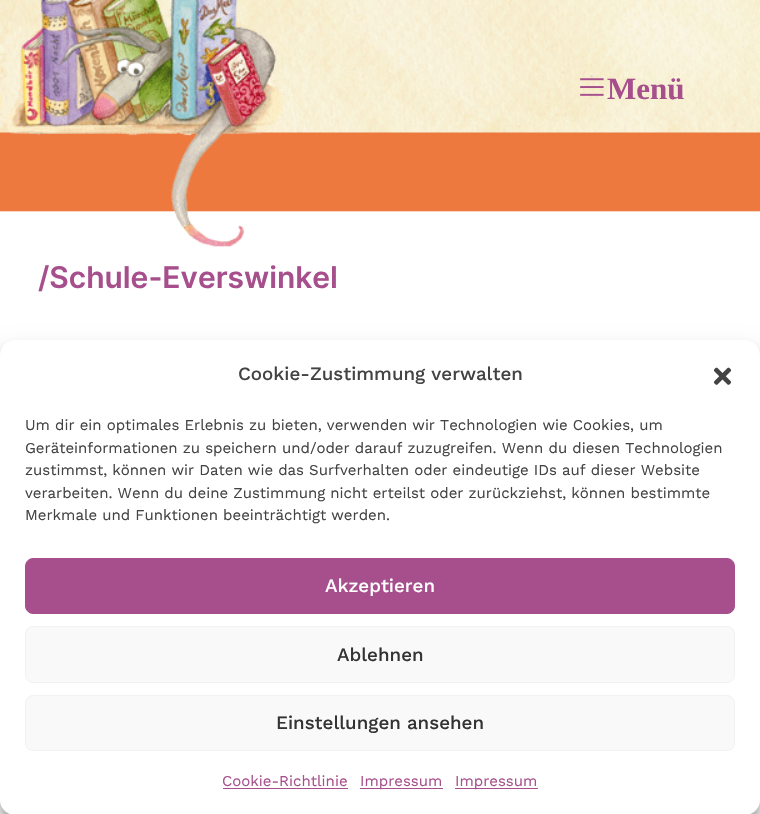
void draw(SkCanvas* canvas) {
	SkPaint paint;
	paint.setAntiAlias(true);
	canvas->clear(0xffffffff);
	canvas->drawImageRect(SkImages::DeferredFromEncodedData(SkData::MakeFromFileName("img1.png")), SkRect::MakeXYWH(0, 0, 760, 212), SkSamplingOptions());
	canvas->drawImageRect(SkImages::DeferredFromEncodedData(SkData::MakeFromFileName("img2.png")), SkRect::MakeXYWH(0, 0, 284, 247), SkSamplingOptions());
	canvas->drawImageRect(SkImages::DeferredFromEncodedData(SkData::MakeFromFileName("img3.png")), SkRect::MakeXYWH(580, 78, 24, 18), SkSamplingOptions());
	SkFont f1(fontMgr->matchFamilyStyle("Liberation Serif", SkFontStyle::Bold()), 31);
	f1.setSubpixel(true);
	paint.setColor(0xffa64f8c);
	canvas->drawString("Menü", 607, 99, f1, paint);
	SkFont f2(fontMgr->matchFamilyStyle("Inter", SkFontStyle(600, SkFontStyle::kNormal_Width, SkFontStyle::kUpright_Slant)), 30);
	f2.setSubpixel(true);
	canvas->drawString("/Schule-Everswinkel", 38, 288, f2, paint);
	paint.setColor(0x3b000000);
	paint.setMaskFilter(SkMaskFilter::MakeBlur(kNormal_SkBlurStyle, 4));
	canvas->drawRoundRect(SkRect::MakeXYWH(0, 348, 760, 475), 15, 15, paint);
	paint.setMaskFilter(nullptr);
	paint.setColor(0x30000000);
	paint.setMaskFilter(SkMaskFilter::MakeBlur(kNormal_SkBlurStyle, 12.5));
	canvas->drawRoundRect(SkRect::MakeXYWH(0, 353, 760, 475), 15, 15, paint);
	paint.setMaskFilter(nullptr);
	paint.setColor(0xffffffff);
	canvas->drawRoundRect(SkRect::MakeXYWH(0, 340, 760, 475), 15, 15, paint);
	SkFont f3(fontMgr->matchFamilyStyle("Work Sans", SkFontStyle(500, SkFontStyle::kNormal_Width, SkFontStyle::kUpright_Slant)), 18.75);
	f3.setSubpixel(true);
	paint.setColor(0xff434343);
	canvas->drawString("Cookie-Zustimmung verwalten", 238, 380, f3, paint);
	canvas->drawImageRect(SkImages::DeferredFromEncodedData(SkData::MakeFromFileName("img4.png")), SkRect::MakeXYWH(713, 367, 19, 18), SkSamplingOptions());
	SkFont f4(fontMgr->matchFamilyStyle("Work Sans", SkFontStyle::Normal()), 15);
	f4.setSubpixel(true);
	canvas->drawString("Um dir ein optimales Erlebnis zu bieten, verwenden wir Technologien wie Cookies, um", 25, 430, f4, paint);
	canvas->drawString("Geräteinformationen zu speichern und/oder darauf zuzugreifen. Wenn du diesen Technologien", 25, 453, f4, paint);
	canvas->drawString("zustimmst, können wir Daten wie das Surfverhalten oder eindeutige IDs auf dieser Website", 25, 475, f4, paint);
	canvas->drawString("verarbeiten. Wenn du deine Zustimmung nicht erteilst oder zurückziehst, können bestimmte", 25, 498, f4, paint);
	canvas->drawString("Merkmale und Funktionen beeinträchtigt werden.", 25, 520, f4, paint);
	paint.setColor(0xffa64f8c);
	canvas->drawRoundRect(SkRect::MakeXYWH(25.5, 558.5, 709, 55), 7.5, 7.5, paint);
	paint.setStroke(true);
	paint.setStrokeWidth(1);
	canvas->drawRoundRect(SkRect::MakeXYWH(25.5, 558.5, 709, 55), 7.5, 7.5, paint);
	paint.setStroke(false);
	paint.setColor(0xffffffff);
	canvas->drawString("Akzeptieren", 325, 592, f3, paint);
	paint.setColor(0xfff9f9f9);
	canvas->drawRoundRect(SkRect::MakeXYWH(25.5, 626.5, 709, 56), 7.5, 7.5, paint);
	paint.setStroke(true);
	paint.setColor(0xfff2f2f2);
	canvas->drawRoundRect(SkRect::MakeXYWH(25.5, 626.5, 709, 56), 7.5, 7.5, paint);
	paint.setStroke(false);
	paint.setColor(0xff333333);
	canvas->drawString("Ablehnen", 337, 661, f3, paint);
	paint.setColor(0xfff9f9f9);
	canvas->drawRoundRect(SkRect::MakeXYWH(25.5, 695.5, 709, 55), 7.5, 7.5, paint);
	paint.setStroke(true);
	paint.setColor(0xfff2f2f2);
	canvas->drawRoundRect(SkRect::MakeXYWH(25.5, 695.5, 709, 55), 7.5, 7.5, paint);
	paint.setStroke(false);
	paint.setColor(0xff333333);
	canvas->drawString("Einstellungen ansehen", 276, 729, f3, paint);
	paint.setColor(0xffa64f8c);
	canvas->drawString("Cookie-Richtlinie", 222, 786, f4, paint);
	canvas->drawRect(SkRect::MakeXYWH(223, 788, 125, 1), paint);
	canvas->drawRect(SkRect::MakeXYWH(360, 788, 83, 1), paint);
	canvas->drawString("Impressum", 360, 786, f4, paint);
	canvas->drawRect(SkRect::MakeXYWH(455, 788, 83, 1), paint);
	canvas->drawString("Impressum", 455, 786, f4, paint);
}
